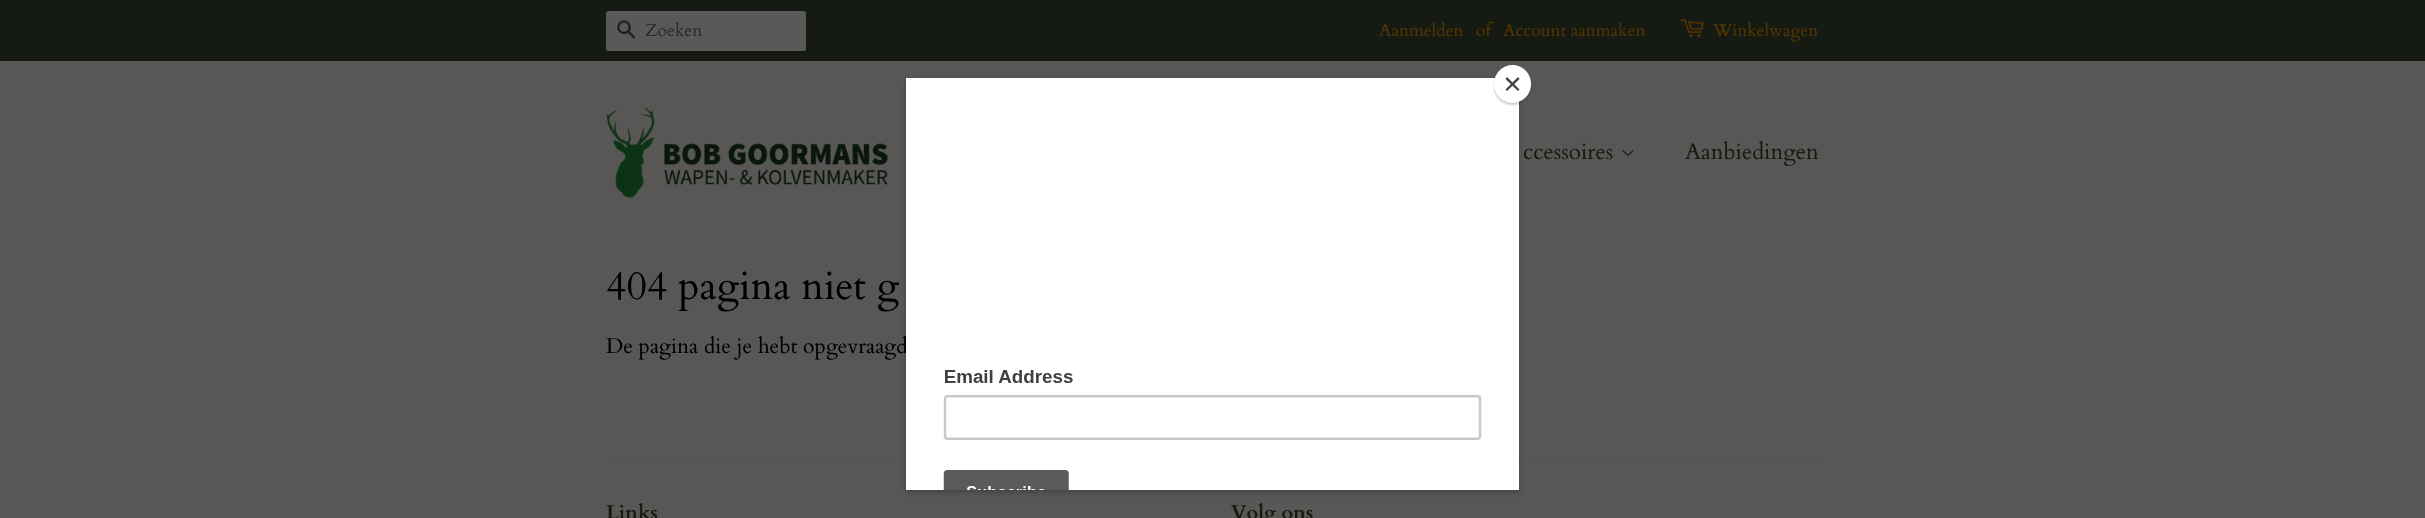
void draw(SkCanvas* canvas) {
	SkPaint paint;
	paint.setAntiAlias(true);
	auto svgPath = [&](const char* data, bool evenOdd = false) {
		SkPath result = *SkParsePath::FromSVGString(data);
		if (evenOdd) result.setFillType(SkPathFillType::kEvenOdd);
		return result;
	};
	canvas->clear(0xff585755);
	paint.setColor(0xff151a12);
	canvas->drawRect(SkRect::MakeXYWH(0, 0, 2425, 61), paint);
	paint.setColor(0xff595959);
	canvas->drawRoundRect(SkRect::MakeXYWH(606, 11, 200, 40), 2.5, 2.5, paint);
	canvas->drawImageRect(SkImages::DeferredFromEncodedData(SkData::MakeFromFileName("img1.png")), SkRect::MakeXYWH(617, 20, 19, 19), SkSamplingOptions());
	SkFont f1(fontMgr->matchFamilyStyle("Cardo", SkFontStyle::Normal()), 17.5);
	f1.setSubpixel(true);
	paint.setColor(0xff292929);
	canvas->drawString("Zoeken", 645, 36, f1, paint);
	paint.setColor(0xff553300);
	canvas->drawString("Aanmelden", 1379, 36, f1, paint);
	canvas->drawString("of", 1476, 36, f1, paint);
	canvas->drawString("Account aanmaken", 1503, 36, f1, paint);
	canvas->drawImageRect(SkImages::DeferredFromEncodedData(SkData::MakeFromFileName("img2.png")), SkRect::MakeXYWH(1680, 19, 24, 19), SkSamplingOptions());
	canvas->drawString("Winkelwagen", 1713, 36, f1, paint);
	canvas->drawImageRect(SkImages::DeferredFromEncodedData(SkData::MakeFromFileName("img3.png")), SkRect::MakeXYWH(606, 107, 282, 91), SkSamplingOptions());
	SkFont f2(fontMgr->matchFamilyStyle("Cardo", SkFontStyle::Normal()), 22.5);
	f2.setSubpixel(true);
	paint.setColor(0xff151a12);
	canvas->drawString("ccessoires", 1523, 159, f2, paint);
	canvas->drawImageRect(SkImages::DeferredFromEncodedData(SkData::MakeFromFileName("img4.png")), SkRect::MakeXYWH(1622, 150, 12, 7), SkSamplingOptions());
	canvas->drawString("Aanbiedingen", 1685, 159, f2, paint);
	SkFont f3(fontMgr->matchFamilyStyle("Cardo", SkFontStyle::Normal()), 40);
	f3.setSubpixel(true);
	paint.setColor(0xff000000);
	canvas->drawString("404 pagina niet g", 606, 299, f3, paint);
	SkFont f4(fontMgr->matchFamilyStyle("Cardo", SkFontStyle::Normal()), 21.25);
	f4.setSubpixel(true);
	canvas->drawString("De pagina die je hebt opgevraagd", 606, 353, f4, paint);
	paint.setColor(0xff525252);
	canvas->drawRect(SkRect::MakeXYWH(606, 460, 1213, 1), paint);
	paint.setColor(0x33000000);
	paint.setMaskFilter(SkMaskFilter::MakeBlur(kNormal_SkBlurStyle, 2.5));
	canvas->drawRect(SkRect::MakeXYWH(906, 80, 613, 413), paint);
	paint.setMaskFilter(nullptr);
	canvas->drawImageRect(SkImages::DeferredFromEncodedData(SkData::MakeFromFileName("img5.png")), SkRect::MakeXYWH(906, 78, 613, 412), SkSamplingOptions());
	paint.setMaskFilter(SkMaskFilter::MakeBlur(kNormal_SkBlurStyle, 1));
	canvas->drawRoundRect(SkRect::MakeXYWH(1494, 68, 37, 37), 18.5, 18.5, paint);
	paint.setMaskFilter(nullptr);
	paint.setColor(0xffffffff);
	canvas->drawRoundRect(SkRect::MakeXYWH(1494, 65, 37, 38), 18.5, 18.5, paint);
	paint.setColor(0xff414141);
	canvas->drawPath(svgPath("M1518 77L1519.5 79L1507 91L1505.5 89.5Z"), paint);
	canvas->drawPath(svgPath("M1505.5 79L1507 77L1519.5 89.5L1518 91Z"), paint);
	SkFont f5(fontMgr->matchFamilyStyle("Cardo", SkFontStyle::Bold()), 20);
	f5.setSubpixel(true);
	paint.setColor(0xff151a12);
	canvas->drawString("Links", 606, 519, f5, paint);
	canvas->drawString("Volg ons", 1231, 519, f5, paint);
}
